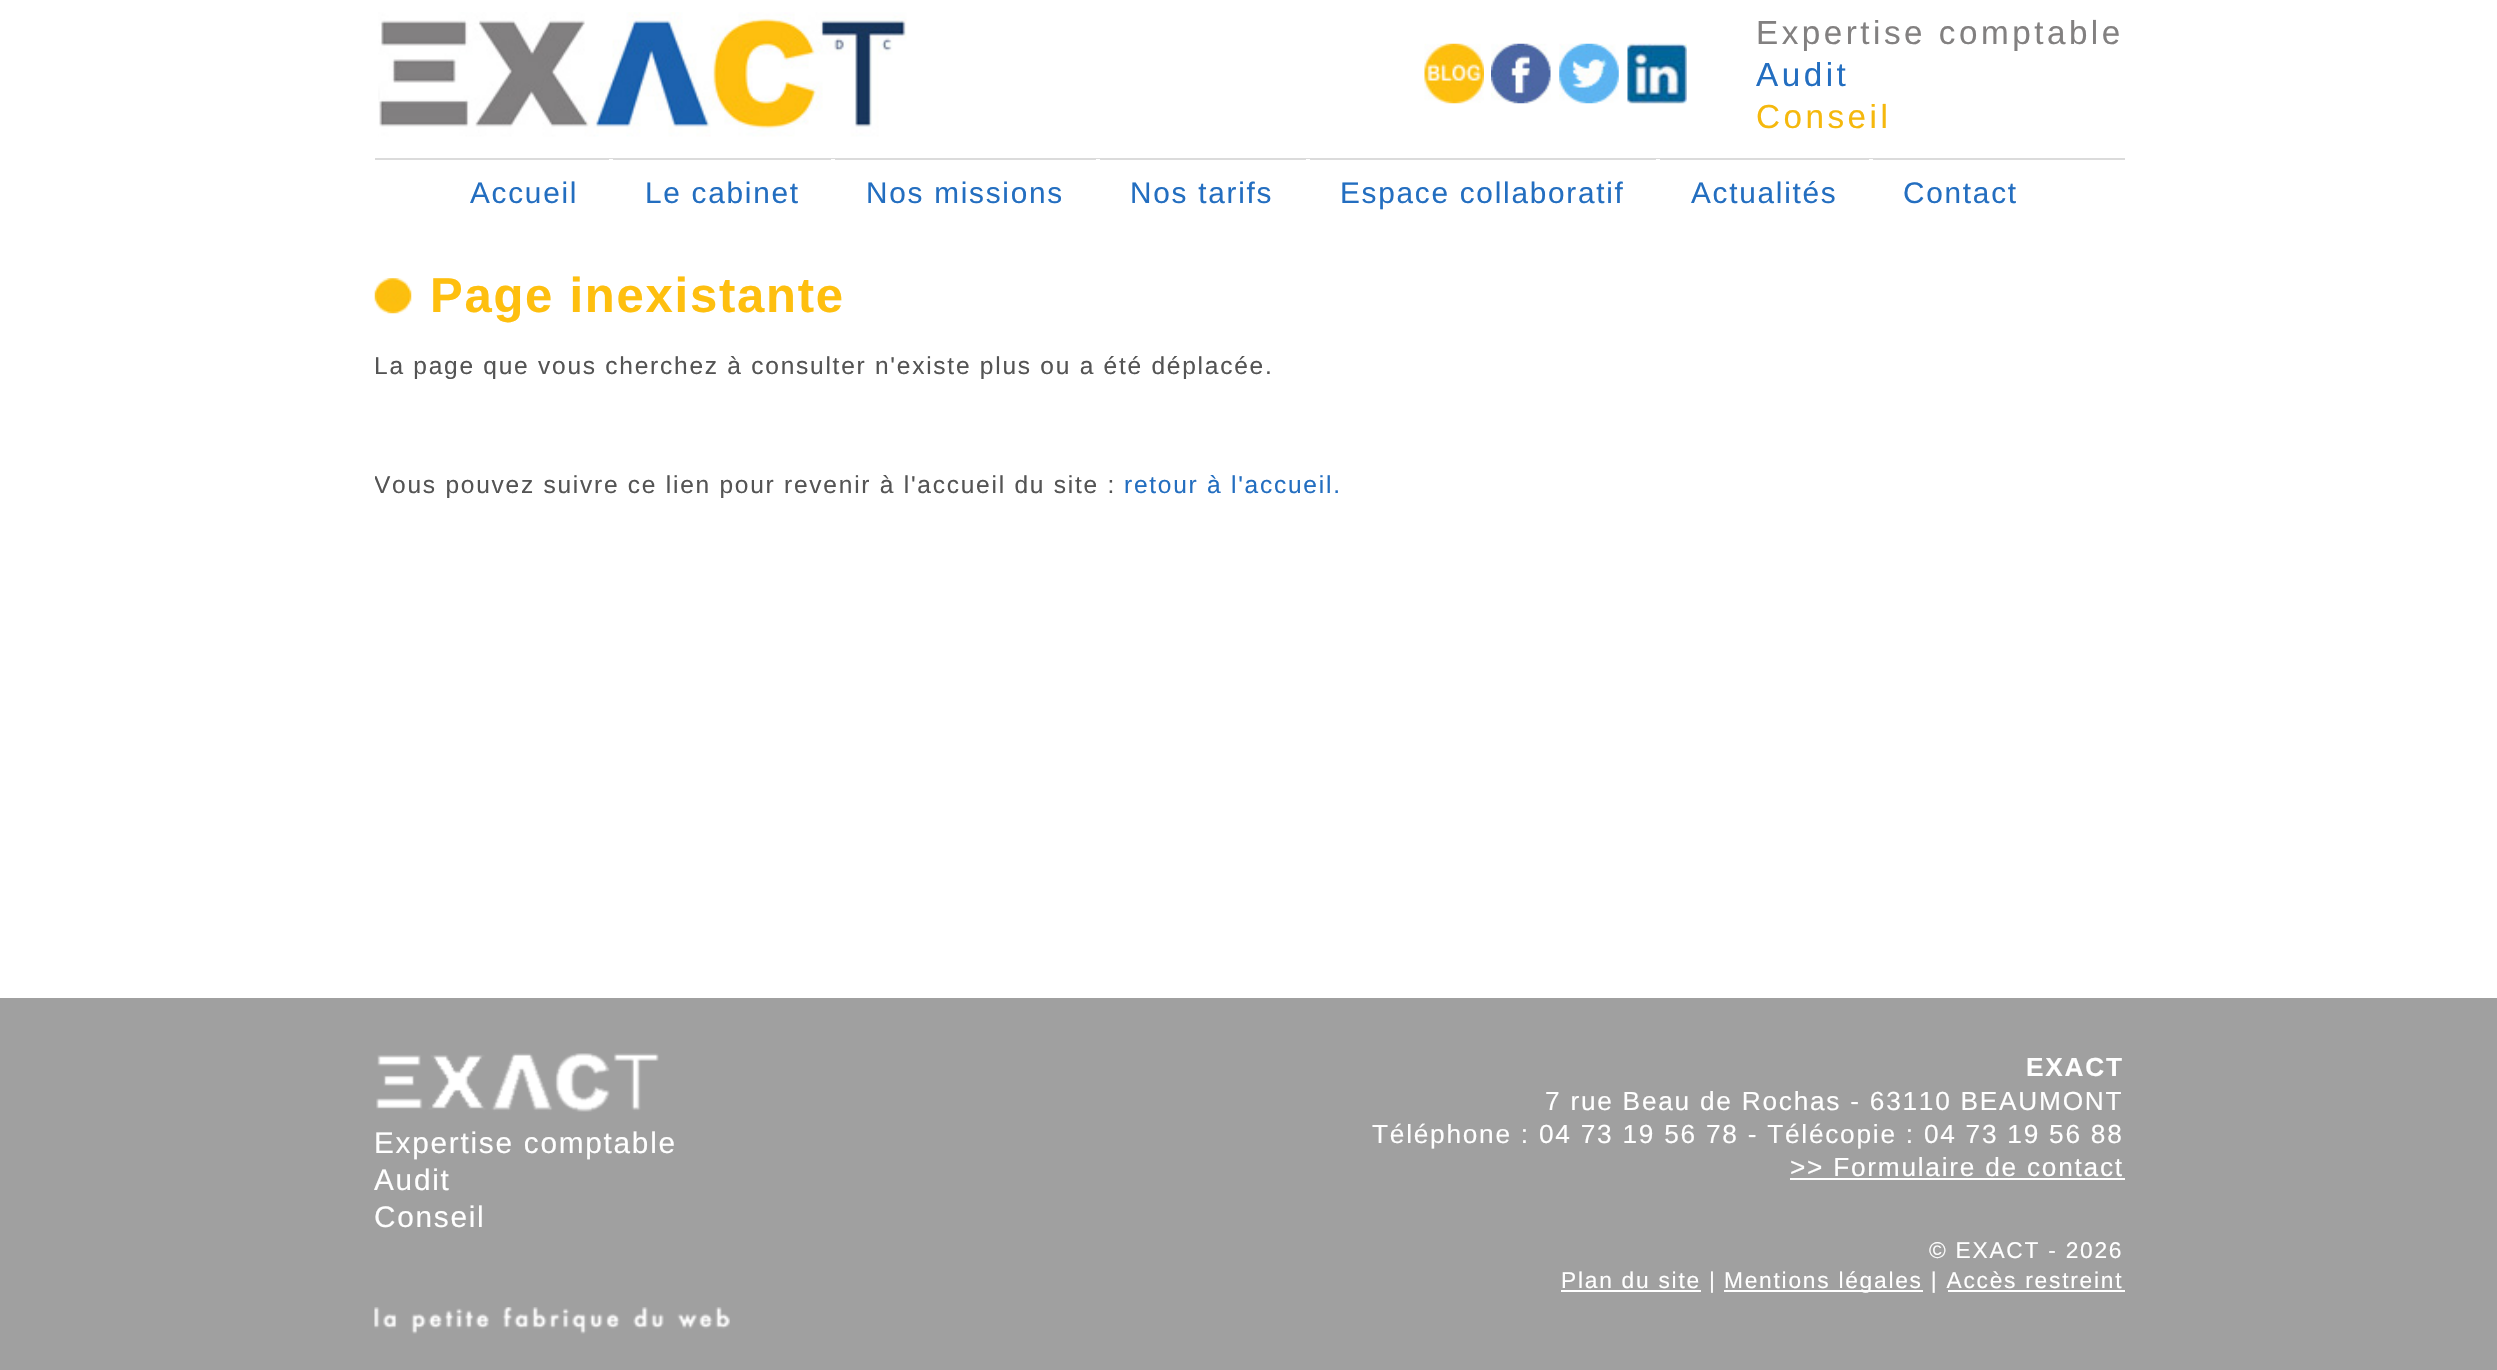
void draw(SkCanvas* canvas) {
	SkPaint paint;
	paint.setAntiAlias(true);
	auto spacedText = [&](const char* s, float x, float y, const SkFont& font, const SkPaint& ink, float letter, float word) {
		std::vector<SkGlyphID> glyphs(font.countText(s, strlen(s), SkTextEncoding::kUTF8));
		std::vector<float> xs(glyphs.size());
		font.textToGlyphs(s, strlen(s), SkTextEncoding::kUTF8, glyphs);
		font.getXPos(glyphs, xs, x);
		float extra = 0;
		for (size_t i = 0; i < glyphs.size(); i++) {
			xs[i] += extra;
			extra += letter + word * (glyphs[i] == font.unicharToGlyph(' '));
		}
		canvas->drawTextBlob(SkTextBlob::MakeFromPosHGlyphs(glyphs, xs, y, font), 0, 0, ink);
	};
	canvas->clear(0xffa0a0a0);
	paint.setColor(0xffffffff);
	canvas->drawRect(SkRect::MakeXYWH(0, 0, 2497, 998), paint);
	canvas->drawImageRect(SkImages::DeferredFromEncodedData(SkData::MakeFromFileName("img1.png")), SkRect::MakeXYWH(378, 12, 529, 125), SkSamplingOptions());
	canvas->drawImageRect(SkImages::DeferredFromEncodedData(SkData::MakeFromFileName("img2.png")), SkRect::MakeXYWH(1424, 43, 60, 61), SkSamplingOptions());
	canvas->drawImageRect(SkImages::DeferredFromEncodedData(SkData::MakeFromFileName("img3.png")), SkRect::MakeXYWH(1491, 43, 60, 61), SkSamplingOptions());
	canvas->drawImageRect(SkImages::DeferredFromEncodedData(SkData::MakeFromFileName("img4.png")), SkRect::MakeXYWH(1559, 43, 60, 61), SkSamplingOptions());
	canvas->drawImageRect(SkImages::DeferredFromEncodedData(SkData::MakeFromFileName("img5.png")), SkRect::MakeXYWH(1627, 43, 60, 61), SkSamplingOptions());
	SkFont f1(fontMgr->matchFamilyStyle("Liberation Sans", SkFontStyle::Normal()), 33.25);
	f1.setSubpixel(true);
	paint.setColor(0xff828080);
	spacedText("Expertise comptable", 1756, 44, f1, paint, 3.5, 0);
	paint.setColor(0xff236ec0);
	spacedText("Audit", 1756, 86, f1, paint, 3.5, 0);
	paint.setColor(0xfff5b80d);
	spacedText("Conseil", 1756, 128, f1, paint, 3.5, 0);
	paint.setColor(0xffdbdbdb);
	canvas->drawRect(SkRect::MakeXYWH(375, 158, 1750, 2), paint);
	SkFont f2(fontMgr->matchFamilyStyle("Liberation Sans", SkFontStyle::Normal()), 29.75);
	f2.setSubpixel(true);
	paint.setColor(0xff236ec0);
	spacedText("Accueil", 470, 203, f2, paint, 1.75, 0);
	paint.setColor(0xffffffff);
	canvas->drawRect(SkRect::MakeXYWH(609, 159, 4, 1), paint);
	paint.setColor(0xff236ec0);
	spacedText("Le cabinet", 645, 203, f2, paint, 1.75, 0);
	paint.setColor(0xffffffff);
	canvas->drawRect(SkRect::MakeXYWH(831, 159, 4, 1), paint);
	paint.setColor(0xff236ec0);
	spacedText("Nos missions", 866, 203, f2, paint, 1.75, 0);
	paint.setColor(0xffffffff);
	canvas->drawRect(SkRect::MakeXYWH(1096, 159, 4, 1), paint);
	paint.setColor(0xff236ec0);
	spacedText("Nos tarifs", 1130, 203, f2, paint, 1.75, 0);
	paint.setColor(0xffffffff);
	canvas->drawRect(SkRect::MakeXYWH(1306, 159, 4, 1), paint);
	paint.setColor(0xff236ec0);
	spacedText("Espace collaboratif", 1340, 203, f2, paint, 1.75, 0);
	paint.setColor(0xffffffff);
	canvas->drawRect(SkRect::MakeXYWH(1656, 159, 4, 1), paint);
	paint.setColor(0xff236ec0);
	spacedText("Actualités", 1691, 203, f2, paint, 1.75, 0);
	paint.setColor(0xffffffff);
	canvas->drawRect(SkRect::MakeXYWH(1869, 159, 4, 1), paint);
	paint.setColor(0xff236ec0);
	spacedText("Contact", 1903, 203, f2, paint, 1.75, 0);
	canvas->drawImageRect(SkImages::DeferredFromEncodedData(SkData::MakeFromFileName("img6.png")), SkRect::MakeXYWH(374, 278, 38, 36), SkSamplingOptions());
	SkFont f3(fontMgr->matchFamilyStyle("Liberation Sans", SkFontStyle::Bold()), 49);
	f3.setSubpixel(true);
	paint.setColor(0xfffebf0f);
	spacedText("Page inexistante", 430, 312, f3, paint, 1.75, 0);
	SkFont f4(fontMgr->matchFamilyStyle("Liberation Sans", SkFontStyle::Normal()), 24.5);
	f4.setSubpixel(true);
	paint.setColor(0xff545454);
	spacedText("La page que vous cherchez à consulter n'existe plus ou a été déplacée.", 374, 374, f4, paint, 1.75, 0);
	canvas->save();
	canvas->clipRect(SkRect::MakeXYWH(375, 245, 1750, 753));
	spacedText("Vous pouvez suivre ce lien pour revenir à l'accueil du site :", 374, 493, f4, paint, 1.75, 0);
	canvas->restore();
	paint.setColor(0xff236ec0);
	spacedText("retour à l'accueil.", 1124, 493, f4, paint, 1.75, 0);
	canvas->drawImageRect(SkImages::DeferredFromEncodedData(SkData::MakeFromFileName("img7.png")), SkRect::MakeXYWH(376, 1053, 283, 59), SkSamplingOptions());
	paint.setColor(0xffffffff);
	spacedText("Expertise comptable", 374, 1153, f2, paint, 1.75, 0);
	spacedText("Audit", 374, 1190, f2, paint, 1.75, 0);
	spacedText("Conseil", 374, 1227, f2, paint, 1.75, 0);
	canvas->drawImageRect(SkImages::DeferredFromEncodedData(SkData::MakeFromFileName("img8.png")), SkRect::MakeXYWH(374, 1307, 356, 27), SkSamplingOptions());
	SkFont f5(fontMgr->matchFamilyStyle("Liberation Sans", SkFontStyle::Bold()), 26.25);
	f5.setSubpixel(true);
	spacedText("EXACT", 2026, 1076, f5, paint, 1.75, 0);
	SkFont f6(fontMgr->matchFamilyStyle("Liberation Sans", SkFontStyle::Normal()), 26.25);
	f6.setSubpixel(true);
	spacedText("7 rue Beau de Rochas - 63110 BEAUMONT", 1545, 1110, f6, paint, 1.75, 0);
	spacedText("Téléphone : 04 73 19 56 78 - Télécopie : 04 73 19 56 88", 1372, 1143, f6, paint, 1.75, 0);
	spacedText(">> Formulaire de contact", 1790, 1176, f6, paint, 1.75, 0);
	canvas->drawRect(SkRect::MakeXYWH(1790, 1178, 335, 2), paint);
	SkFont f7(fontMgr->matchFamilyStyle("Liberation Sans", SkFontStyle::Normal()), 22.75);
	f7.setSubpixel(true);
	spacedText("© EXACT - 2026", 1929, 1258, f7, paint, 1.75, 0);
	canvas->drawRect(SkRect::MakeXYWH(1561, 1290, 140, 2), paint);
	spacedText("Plan du site |", 1561, 1288, f7, paint, 1.75, 0);
	canvas->drawRect(SkRect::MakeXYWH(1724, 1290, 199, 2), paint);
	spacedText("Mentions légales | Accès restreint", 1724, 1288, f7, paint, 1.75, 0);
	canvas->drawRect(SkRect::MakeXYWH(1948, 1290, 177, 2), paint);
}
